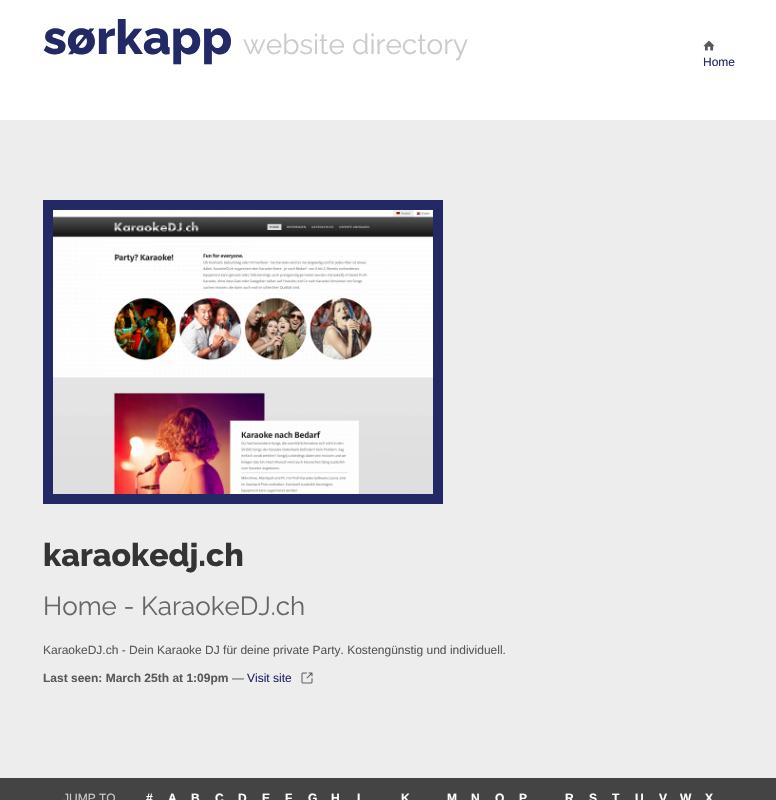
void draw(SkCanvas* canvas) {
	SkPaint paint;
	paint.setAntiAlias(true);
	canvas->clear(0xffededed);
	paint.setColor(0xffffffff);
	canvas->drawRect(SkRect::MakeXYWH(0, 0, 776, 120), paint);
	SkFont f1(fontMgr->matchFamilyStyle("Raleway", SkFontStyle(800, SkFontStyle::kNormal_Width, SkFontStyle::kUpright_Slant)), 48);
	f1.setSubpixel(true);
	paint.setColor(0xff222965);
	canvas->drawString("sørkapp", 43, 54, f1, paint);
	SkFont f2(fontMgr->matchFamilyStyle("Raleway", SkFontStyle::Normal()), 28);
	f2.setSubpixel(true);
	paint.setColor(0xffcbcbcb);
	canvas->drawString("website directory", 243, 54, f2, paint);
	canvas->drawImageRect(SkImages::DeferredFromEncodedData(SkData::MakeFromFileName("img1.png")), SkRect::MakeXYWH(703, 40, 12, 11), SkSamplingOptions());
	SkFont f3(fontMgr->matchFamilyStyle("Liberation Sans", SkFontStyle::Normal()), 12);
	f3.setSubpixel(true);
	paint.setColor(0xff222965);
	canvas->drawString("Home", 703, 66, f3, paint);
	paint.setStroke(true);
	paint.setStrokeWidth(10);
	canvas->drawRect(SkRect::MakeXYWH(48, 205, 390, 294), paint);
	canvas->drawImageRect(SkImages::DeferredFromEncodedData(SkData::MakeFromFileName("img2.png")), SkRect::MakeXYWH(53, 210, 380, 284), SkSamplingOptions());
	SkFont f4(fontMgr->matchFamilyStyle("Raleway", SkFontStyle(800, SkFontStyle::kNormal_Width, SkFontStyle::kUpright_Slant)), 32);
	f4.setSubpixel(true);
	paint.setStroke(false);
	paint.setColor(0xff343434);
	canvas->drawString("karaokedj.ch", 43, 566, f4, paint);
	SkFont f5(fontMgr->matchFamilyStyle("Raleway", SkFontStyle::Normal()), 26);
	f5.setSubpixel(true);
	paint.setColor(0xff666666);
	canvas->drawString("Home - KaraokeDJ.ch", 43, 615, f5, paint);
	paint.setColor(0xff585858);
	canvas->drawString("KaraokeDJ.ch - Dein Karaoke DJ für deine private Party. Kostengünstig und individuell.", 43, 654, f3, paint);
	SkFont f6(fontMgr->matchFamilyStyle("Liberation Sans", SkFontStyle::Bold()), 12);
	f6.setSubpixel(true);
	canvas->drawString("Last seen: March 25th at 1:09pm", 43, 682, f6, paint);
	canvas->drawString("—", 232, 682, f3, paint);
	paint.setColor(0xff222965);
	canvas->drawString("Visit site", 247, 682, f3, paint);
	canvas->drawImageRect(SkImages::DeferredFromEncodedData(SkData::MakeFromFileName("img3.png")), SkRect::MakeXYWH(301, 672, 12, 12), SkSamplingOptions());
	paint.setColor(0xff444444);
	canvas->drawRect(SkRect::MakeXYWH(0, 778, 776, 22), paint);
	paint.setColor(0xffcbcbcb);
	canvas->drawString("JUMP TO", 63, 802, f3, paint);
	paint.setColor(0xffffffff);
	canvas->drawString("#", 146, 802, f6, paint);
	canvas->drawString("A", 168, 802, f6, paint);
	canvas->drawString("B", 191, 802, f6, paint);
	canvas->drawString("C", 215, 802, f6, paint);
	canvas->drawString("D", 238, 802, f6, paint);
	canvas->drawString("E", 262, 802, f6, paint);
	canvas->drawString("F", 285, 802, f6, paint);
	canvas->drawString("G", 308, 802, f6, paint);
	canvas->drawString("H", 331, 802, f6, paint);
	canvas->drawString("I", 357, 802, f6, paint);
	canvas->drawString("K", 401, 802, f6, paint);
	canvas->drawString("M", 447, 802, f6, paint);
	canvas->drawString("N", 471, 802, f6, paint);
	canvas->drawString("O", 495, 802, f6, paint);
	canvas->drawString("P", 519, 802, f6, paint);
	canvas->drawString("R", 565, 802, f6, paint);
	canvas->drawString("S", 589, 802, f6, paint);
	canvas->drawString("T", 612, 802, f6, paint);
	canvas->drawString("U", 635, 802, f6, paint);
	canvas->drawString("V", 659, 802, f6, paint);
	canvas->drawString("W", 680, 802, f6, paint);
	canvas->drawString("X", 705, 802, f6, paint);
}
